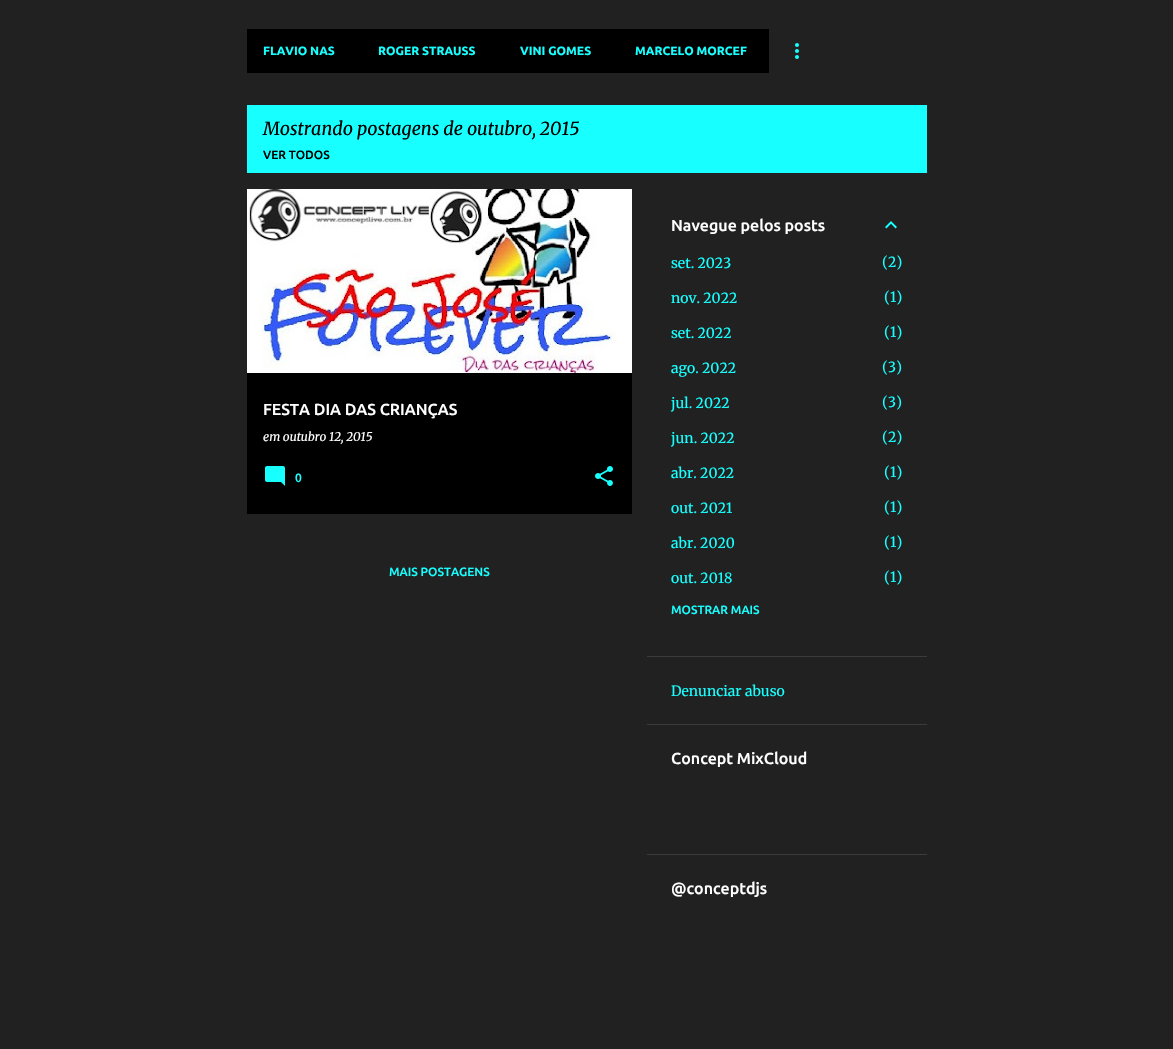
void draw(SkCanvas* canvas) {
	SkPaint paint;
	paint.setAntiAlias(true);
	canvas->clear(0xff212121);
	paint.setColor(0xff000000);
	canvas->drawRect(SkRect::MakeXYWH(247, 29, 522, 44), paint);
	SkFont f1(fontMgr->matchFamilyStyle("Ubuntu", SkFontStyle::Bold()), 12);
	f1.setSubpixel(true);
	paint.setColor(0xff18ffff);
	canvas->drawString("FLAVIO NAS", 263, 55, f1, paint);
	canvas->drawString("ROGER STRAUSS", 378, 55, f1, paint);
	canvas->drawString("VINI GOMES", 520, 55, f1, paint);
	canvas->drawString("MARCELO MORCEF", 635, 55, f1, paint);
	canvas->drawImageRect(SkImages::DeferredFromEncodedData(SkData::MakeFromFileName("img1.png")), SkRect::MakeXYWH(795, 43, 4, 16), SkSamplingOptions());
	canvas->drawRect(SkRect::MakeXYWH(247, 105, 680, 68), paint);
	SkFont f2(fontMgr->matchFamilyStyle("Merriweather", SkFontStyle::Italic()), 18);
	f2.setSubpixel(true);
	paint.setColor(0xff000000);
	canvas->drawString("Mostrando postagens de outubro, 2015", 263, 135, f2, paint);
	SkFont f3(fontMgr->matchFamilyStyle("Ubuntu", SkFontStyle(500, SkFontStyle::kNormal_Width, SkFontStyle::kUpright_Slant)), 12);
	f3.setSubpixel(true);
	canvas->drawString("VER TODOS", 263, 159, f3, paint);
	canvas->drawRect(SkRect::MakeXYWH(247, 373, 385, 141), paint);
	canvas->drawImageRect(SkImages::DeferredFromEncodedData(SkData::MakeFromFileName("img2.png")), SkRect::MakeXYWH(247, 189, 385, 184), SkSamplingOptions());
	SkFont f4(fontMgr->matchFamilyStyle("Ubuntu", SkFontStyle(500, SkFontStyle::kNormal_Width, SkFontStyle::kUpright_Slant)), 16);
	f4.setSubpixel(true);
	paint.setColor(0xffffffff);
	canvas->drawString("FESTA DIA DAS CRIANÇAS", 263, 415, f4, paint);
	SkFont f5(fontMgr->matchFamilyStyle("Merriweather", SkFontStyle::Italic()), 12);
	f5.setSubpixel(true);
	canvas->drawString("em outubro 12, 2015", 263, 441, f5, paint);
	canvas->drawImageRect(SkImages::DeferredFromEncodedData(SkData::MakeFromFileName("img3.png")), SkRect::MakeXYWH(265, 466, 20, 20), SkSamplingOptions());
	paint.setColor(0xff18ffff);
	canvas->drawString("0", 295, 482, f3, paint);
	canvas->drawImageRect(SkImages::DeferredFromEncodedData(SkData::MakeFromFileName("img4.png")), SkRect::MakeXYWH(595, 466, 18, 20), SkSamplingOptions());
	canvas->drawString("MAIS POSTAGENS", 389, 576, f3, paint);
	paint.setColor(0xffffffff);
	canvas->drawString("Navegue pelos posts", 671, 231, f4, paint);
	canvas->drawImageRect(SkImages::DeferredFromEncodedData(SkData::MakeFromFileName("img5.png")), SkRect::MakeXYWH(885, 221, 12, 8), SkSamplingOptions());
	SkFont f6(fontMgr->matchFamilyStyle("Merriweather", SkFontStyle(300, SkFontStyle::kNormal_Width, SkFontStyle::kUpright_Slant)), 14);
	f6.setSubpixel(true);
	paint.setColor(0xff18ffff);
	canvas->drawString("set. 2023", 671, 268, f6, paint);
	canvas->drawString("(2)", 882, 267, f6, paint);
	canvas->drawString("nov. 2022", 671, 303, f6, paint);
	canvas->drawString("(1)", 884, 302, f6, paint);
	canvas->drawString("set. 2022", 671, 338, f6, paint);
	canvas->drawString("(1)", 884, 337, f6, paint);
	canvas->drawString("ago. 2022", 671, 373, f6, paint);
	canvas->drawString("(3)", 882, 372, f6, paint);
	canvas->drawString("jul. 2022", 671, 408, f6, paint);
	canvas->drawString("(3)", 882, 407, f6, paint);
	canvas->drawString("jun. 2022", 671, 443, f6, paint);
	canvas->drawString("(2)", 882, 442, f6, paint);
	canvas->drawString("abr. 2022", 671, 478, f6, paint);
	canvas->drawString("(1)", 884, 477, f6, paint);
	canvas->drawString("out. 2021", 671, 513, f6, paint);
	canvas->drawString("(1)", 884, 512, f6, paint);
	canvas->drawString("abr. 2020", 671, 548, f6, paint);
	canvas->drawString("(1)", 884, 547, f6, paint);
	canvas->drawString("out. 2018", 671, 583, f6, paint);
	canvas->drawString("(1)", 884, 582, f6, paint);
	canvas->drawString("MOSTRAR MAIS", 671, 614, f3, paint);
	paint.setColor(0xff3b3b3b);
	canvas->drawRect(SkRect::MakeXYWH(647, 656, 280, 1), paint);
	paint.setColor(0xff18ffff);
	canvas->drawString("Denunciar abuso", 671, 696, f6, paint);
	paint.setColor(0xff3b3b3b);
	canvas->drawRect(SkRect::MakeXYWH(647, 724, 280, 1), paint);
	paint.setColor(0xffffffff);
	canvas->drawString("Concept MixCloud", 671, 764, f4, paint);
	paint.setColor(0xff3b3b3b);
	canvas->drawRect(SkRect::MakeXYWH(647, 854, 280, 1), paint);
	paint.setColor(0xffffffff);
	canvas->drawString("@conceptdjs", 671, 894, f4, paint);
}
